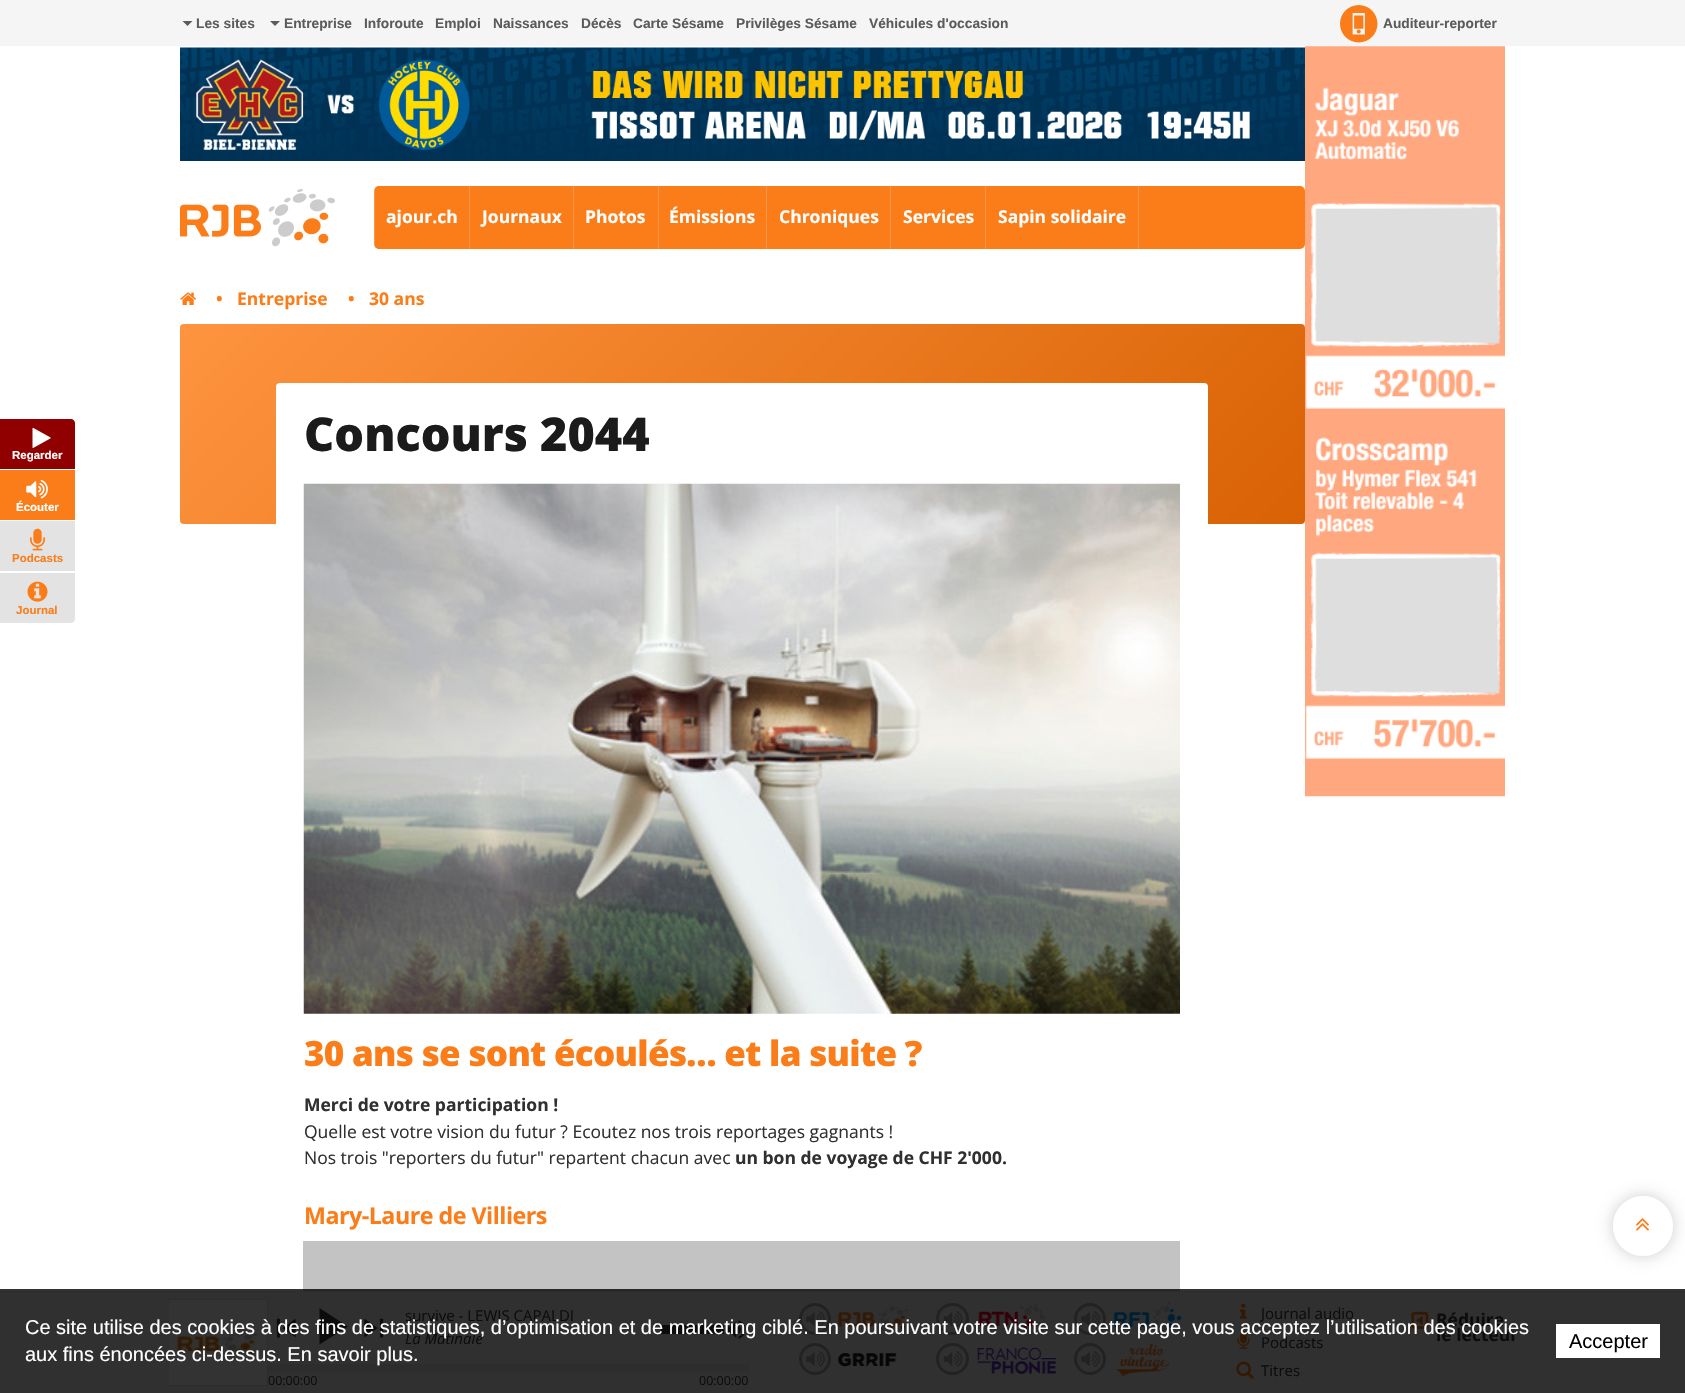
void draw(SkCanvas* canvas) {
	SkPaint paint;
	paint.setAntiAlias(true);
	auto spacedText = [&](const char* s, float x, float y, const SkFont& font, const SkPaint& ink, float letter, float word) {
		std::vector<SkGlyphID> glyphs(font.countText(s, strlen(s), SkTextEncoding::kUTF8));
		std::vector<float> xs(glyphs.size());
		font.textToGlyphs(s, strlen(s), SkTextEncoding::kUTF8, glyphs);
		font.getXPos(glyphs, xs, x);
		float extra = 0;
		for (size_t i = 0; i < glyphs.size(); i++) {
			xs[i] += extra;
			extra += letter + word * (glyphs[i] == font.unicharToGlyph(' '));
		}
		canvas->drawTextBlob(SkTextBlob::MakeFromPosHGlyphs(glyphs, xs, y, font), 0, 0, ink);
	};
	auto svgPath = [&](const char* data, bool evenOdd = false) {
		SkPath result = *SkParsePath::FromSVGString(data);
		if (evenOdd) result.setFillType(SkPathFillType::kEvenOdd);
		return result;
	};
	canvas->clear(0xffffffff);
	paint.setColor(0xff333333);
	canvas->drawRect(SkRect::MakeXYWH(0, 1289, 1685, 2), paint);
	paint.setColor(0xfff5f5f5);
	canvas->drawRect(SkRect::MakeXYWH(0, 0, 1685, 46), paint);
	paint.setColor(0xff5b5b5b);
	canvas->drawPath(svgPath("M182.5 21H192.5L187.5 26Z"), paint);
	SkFont f1(fontMgr->matchFamilyStyle("Liberation Sans", SkFontStyle::Bold()), 13.75);
	f1.setSubpixel(true);
	canvas->drawString("Les sites", 196, 28, f1, paint);
	canvas->drawPath(svgPath("M270 21H280L275 26Z"), paint);
	canvas->drawString("Entreprise", 284, 28, f1, paint);
	canvas->drawString("Inforoute", 364, 28, f1, paint);
	canvas->drawString("Emploi", 435, 28, f1, paint);
	canvas->drawString("Naissances", 493, 28, f1, paint);
	canvas->drawString("Décès", 581, 28, f1, paint);
	canvas->drawString("Carte Sésame", 633, 28, f1, paint);
	canvas->drawString("Privilèges Sésame", 736, 28, f1, paint);
	canvas->drawString("Véhicules d'occasion", 869, 28, f1, paint);
	canvas->drawImageRect(SkImages::DeferredFromEncodedData(SkData::MakeFromFileName("img1.png")), SkRect::MakeXYWH(1340, 5, 38, 38), SkSamplingOptions());
	canvas->drawString("Auditeur-reporter", 1383, 28, f1, paint);
	canvas->drawImageRect(SkImages::DeferredFromEncodedData(SkData::MakeFromFileName("img2.png")), SkRect::MakeXYWH(180, 47, 1125, 114), SkSamplingOptions());
	canvas->drawImageRect(SkImages::DeferredFromEncodedData(SkData::MakeFromFileName("img3.png")), SkRect::MakeXYWH(180, 189, 155, 58), SkSamplingOptions());
	paint.setColor(0xfffb7d19);
	canvas->drawRoundRect(SkRect::MakeXYWH(374, 186, 931, 63), 5, 5, paint);
	paint.setColor(0xfff69547);
	canvas->drawRect(SkRect::MakeXYWH(469, 186, 1, 63), paint);
	paint.setColor(0x33ffffff);
	canvas->drawRect(SkRect::MakeXYWH(374, 186, 1, 63), paint);
	paint.setColor(0xfffb7d19);
	canvas->drawPath(svgPath("M380 186H469V249H380C377 249 375 247 375 244V191C375 188 377 186 380 186Z"), paint);
	SkFont f2(fontMgr->matchFamilyStyle("Open Sans", SkFontStyle::Bold()), 17.5);
	f2.setSubpixel(true);
	paint.setColor(0xffffffff);
	canvas->drawString("ajour.ch", 386, 223, f2, paint);
	paint.setColor(0xfff69547);
	canvas->drawRect(SkRect::MakeXYWH(573, 186, 1, 63), paint);
	paint.setColor(0xffffffff);
	canvas->drawString("Journaux", 482, 223, f2, paint);
	paint.setColor(0xfff69547);
	canvas->drawRect(SkRect::MakeXYWH(658, 186, 1, 63), paint);
	paint.setColor(0xffffffff);
	canvas->drawString("Photos", 585, 223, f2, paint);
	paint.setColor(0xfff69547);
	canvas->drawRect(SkRect::MakeXYWH(766, 186, 1, 63), paint);
	paint.setColor(0xffffffff);
	canvas->drawString("Émissions", 669, 223, f2, paint);
	paint.setColor(0xfff69547);
	canvas->drawRect(SkRect::MakeXYWH(890, 186, 1, 63), paint);
	paint.setColor(0xffffffff);
	canvas->drawString("Chroniques", 779, 223, f2, paint);
	paint.setColor(0xfff69547);
	canvas->drawRect(SkRect::MakeXYWH(985, 186, 1, 63), paint);
	paint.setColor(0xffffffff);
	canvas->drawString("Services", 903, 223, f2, paint);
	paint.setColor(0xfff69547);
	canvas->drawRect(SkRect::MakeXYWH(1138, 186, 1, 63), paint);
	paint.setColor(0xffffffff);
	canvas->drawString("Sapin solidaire", 998, 223, f2, paint);
	paint.setColor(0xff910000);
	canvas->drawPath(svgPath("M0 419H71C73 419 75 421 75 423V469H0Z"), paint);
	canvas->drawImageRect(SkImages::DeferredFromEncodedData(SkData::MakeFromFileName("img4.png")), SkRect::MakeXYWH(32, 427, 19, 21), SkSamplingOptions());
	SkFont f3(fontMgr->matchFamilyStyle("Liberation Sans", SkFontStyle::Bold()), 11.5);
	f3.setSubpixel(true);
	paint.setColor(0xffffffff);
	canvas->drawString("Regarder", 12, 459, f3, paint);
	paint.setColor(0xfffb7d19);
	canvas->drawRect(SkRect::MakeXYWH(0, 470, 75, 50), paint);
	canvas->drawImageRect(SkImages::DeferredFromEncodedData(SkData::MakeFromFileName("img5.png")), SkRect::MakeXYWH(26, 479, 22, 20), SkSamplingOptions());
	paint.setColor(0xffffffff);
	canvas->drawString("Écouter", 16, 511, f3, paint);
	paint.setColor(0xffe3e3e3);
	canvas->drawRect(SkRect::MakeXYWH(0, 521, 75, 50), paint);
	canvas->drawImageRect(SkImages::DeferredFromEncodedData(SkData::MakeFromFileName("img6.png")), SkRect::MakeXYWH(30, 528, 15, 23), SkSamplingOptions());
	paint.setColor(0xfffb7d19);
	canvas->drawString("Podcasts", 12, 562, f3, paint);
	paint.setColor(0xffe3e3e3);
	canvas->drawPath(svgPath("M0 573H75V619C75 621 73 623 71 623H0Z"), paint);
	canvas->drawImageRect(SkImages::DeferredFromEncodedData(SkData::MakeFromFileName("img7.png")), SkRect::MakeXYWH(27, 581, 21, 21), SkSamplingOptions());
	paint.setColor(0xfffb7d19);
	canvas->drawString("Journal", 16, 614, f3, paint);
	canvas->drawImageRect(SkImages::DeferredFromEncodedData(SkData::MakeFromFileName("img8.png")), SkRect::MakeXYWH(180, 292, 16, 13), SkSamplingOptions());
	canvas->drawString("•", 216, 305, f2, paint);
	canvas->drawString("Entreprise", 237, 305, f2, paint);
	canvas->drawString("•", 348, 305, f2, paint);
	canvas->drawString("30 ans", 369, 305, f2, paint);
	{
		const SkColor colors[] = {0xffff943f, 0xffd86204};
		const float stops[] = {0, 1};
		const SkPoint ends[] = {{411, 93}, {1074, 755}};
		paint.setShader(SkGradientShader::MakeLinear(ends, colors, stops, 2, SkTileMode::kClamp));
		paint.setAlpha(255);
	}
	canvas->drawRoundRect(SkRect::MakeXYWH(180, 324, 1125, 200), 4, 4, paint);
	paint.setShader(nullptr);
	paint.setColor(0xffffffff);
	canvas->drawRoundRect(SkRect::MakeXYWH(276, 383, 932, 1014), 4, 4, paint);
	paint.setColor(0xff333333);
	canvas->drawRect(SkRect::MakeXYWH(276, 1289, 932, 2), paint);
	SkFont f4(fontMgr->matchFamilyStyle("Open Sans", SkFontStyle(800, SkFontStyle::kNormal_Width, SkFontStyle::kUpright_Slant)), 46.75);
	f4.setSubpixel(true);
	paint.setColor(0xff1b1b1b);
	canvas->drawString("Concours 2044", 304, 451, f4, paint);
	canvas->drawImageRect(SkImages::DeferredFromEncodedData(SkData::MakeFromFileName("img9.png")), SkRect::MakeXYWH(303, 483, 877, 531), SkSamplingOptions());
	SkFont f5(fontMgr->matchFamilyStyle("Open Sans", SkFontStyle(800, SkFontStyle::kNormal_Width, SkFontStyle::kUpright_Slant)), 35);
	f5.setSubpixel(true);
	paint.setColor(0xfffb7d19);
	spacedText("30 ans se sont écoulés… et la suite ?", 304, 1066, f5, paint, -0.7, 0);
	paint.setColor(0xff303030);
	canvas->drawString("Merci de votre participation !", 304, 1111, f2, paint);
	SkFont f6(fontMgr->matchFamilyStyle("Open Sans", SkFontStyle::Normal()), 17.5);
	f6.setSubpixel(true);
	canvas->drawString("Quelle est votre vision du futur ? Ecoutez nos trois reportages gagnants !", 304, 1138, f6, paint);
	canvas->drawString("Nos trois \"reporters du futur\" repartent chacun avec", 304, 1164, f6, paint);
	canvas->drawString("un bon de voyage de CHF 2'000.", 735, 1164, f2, paint);
	SkFont f7(fontMgr->matchFamilyStyle("Open Sans", SkFontStyle::Bold()), 23.25);
	f7.setSubpixel(true);
	paint.setColor(0xfffb7d19);
	spacedText("Mary-Laure de Villiers", 304, 1224, f7, paint, -0.5, 0);
	paint.setColor(0xffc3c3c3);
	canvas->drawRect(SkRect::MakeXYWH(303, 1241, 877, 48), paint);
	paint.setColor(0xff272727);
	canvas->drawRect(SkRect::MakeXYWH(303, 1289, 877, 2), paint);
	canvas->save();
	canvas->clipPath(svgPath("M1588 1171H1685V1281H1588ZM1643 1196C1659.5 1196 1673 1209.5 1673 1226C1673 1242.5 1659.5 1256 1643 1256C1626.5 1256 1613 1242.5 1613 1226C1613 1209.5 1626.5 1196 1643 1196Z", true), true);
	paint.setColor(0x33000000);
	paint.setMaskFilter(SkMaskFilter::MakeBlur(kNormal_SkBlurStyle, 8));
	canvas->drawRoundRect(SkRect::MakeXYWH(1613, 1196, 60, 60), 30, 30, paint);
	paint.setMaskFilter(nullptr);
	canvas->restore();
	paint.setColor(0x99ffffff);
	canvas->drawCircle(1643, 1226, 30, paint);
	canvas->drawImageRect(SkImages::DeferredFromEncodedData(SkData::MakeFromFileName("img10.png")), SkRect::MakeXYWH(1636, 1218, 13, 13), SkSamplingOptions());
	canvas->drawImageRect(SkImages::DeferredFromEncodedData(SkData::MakeFromFileName("img11.png")), SkRect::MakeXYWH(1305, 46, 200, 751), SkSamplingOptions());
	paint.setColor(0xff303030);
	canvas->drawRect(SkRect::MakeXYWH(0, 1292, 1685, 101), paint);
	paint.setColor(0xff2d2d2d);
	canvas->drawRect(SkRect::MakeXYWH(0, 1291, 1685, 1), paint);
	paint.setStroke(true);
	paint.setStrokeWidth(1);
	canvas->drawRect(SkRect::MakeXYWH(168.5, 1299.5, 99, 86), paint);
	canvas->drawImageRect(SkImages::DeferredFromEncodedData(SkData::MakeFromFileName("img12.png")), SkRect::MakeXYWH(168, 1300, 99, 85), SkSamplingOptions());
	SkFont f8(fontMgr->matchFamilyStyle("Open Sans", SkFontStyle::Normal()), 15);
	f8.setSubpixel(true);
	paint.setStroke(false);
	paint.setColor(0xff0c0c0c);
	canvas->drawString("survive - LEWIS CAPALDI", 405, 1321, f8, paint);
	SkFont f9(fontMgr->matchFamilyStyle("Open Sans", SkFontStyle::Italic()), 15);
	f9.setSubpixel(true);
	canvas->drawString("La Matinale", 405, 1344, f9, paint);
	canvas->drawImageRect(SkImages::DeferredFromEncodedData(SkData::MakeFromFileName("img13.png")), SkRect::MakeXYWH(837, 1305, 71, 26), SkSamplingOptions());
	paint.setStroke(true);
	paint.setStrokeWidth(3);
	paint.setColor(0xff222222);
	canvas->drawCircle(815, 1319, 14.5, paint);
	canvas->drawImageRect(SkImages::DeferredFromEncodedData(SkData::MakeFromFileName("img14.png")), SkRect::MakeXYWH(806, 1311, 19, 16), SkSamplingOptions());
	canvas->drawImageRect(SkImages::DeferredFromEncodedData(SkData::MakeFromFileName("img15.png")), SkRect::MakeXYWH(936, 1303, 110, 30), SkSamplingOptions());
	paint.setStroke(false);
	paint.setColor(0xff303030);
	canvas->drawRoundRect(SkRect::MakeXYWH(937.5, 1304.5, 30, 29), 14.5, 14.5, paint);
	paint.setStroke(true);
	paint.setColor(0xff222222);
	canvas->drawRoundRect(SkRect::MakeXYWH(937.5, 1304.5, 30, 29), 14.5, 14.5, paint);
	canvas->drawImageRect(SkImages::DeferredFromEncodedData(SkData::MakeFromFileName("img16.png")), SkRect::MakeXYWH(943, 1311, 20, 16), SkSamplingOptions());
	canvas->drawImageRect(SkImages::DeferredFromEncodedData(SkData::MakeFromFileName("img17.png")), SkRect::MakeXYWH(1113, 1302, 69, 35), SkSamplingOptions());
	canvas->drawCircle(1090, 1319, 14.5, paint);
	canvas->drawImageRect(SkImages::DeferredFromEncodedData(SkData::MakeFromFileName("img14.png")), SkRect::MakeXYWH(1081, 1311, 19, 16), SkSamplingOptions());
	canvas->drawImageRect(SkImages::DeferredFromEncodedData(SkData::MakeFromFileName("img18.png")), SkRect::MakeXYWH(837, 1353, 60, 14), SkSamplingOptions());
	canvas->drawCircle(815, 1359, 14.5, paint);
	canvas->drawImageRect(SkImages::DeferredFromEncodedData(SkData::MakeFromFileName("img14.png")), SkRect::MakeXYWH(806, 1351, 19, 16), SkSamplingOptions());
	canvas->drawImageRect(SkImages::DeferredFromEncodedData(SkData::MakeFromFileName("img19.png")), SkRect::MakeXYWH(977, 1347, 80, 27), SkSamplingOptions());
	canvas->drawRoundRect(SkRect::MakeXYWH(937.5, 1344.5, 30, 29), 14.5, 14.5, paint);
	canvas->drawImageRect(SkImages::DeferredFromEncodedData(SkData::MakeFromFileName("img16.png")), SkRect::MakeXYWH(943, 1351, 20, 16), SkSamplingOptions());
	canvas->drawImageRect(SkImages::DeferredFromEncodedData(SkData::MakeFromFileName("img20.png")), SkRect::MakeXYWH(1115, 1343, 54, 34), SkSamplingOptions());
	canvas->drawCircle(1090, 1359, 14.5, paint);
	canvas->drawImageRect(SkImages::DeferredFromEncodedData(SkData::MakeFromFileName("img14.png")), SkRect::MakeXYWH(1081, 1351, 19, 16), SkSamplingOptions());
	canvas->drawImageRect(SkImages::DeferredFromEncodedData(SkData::MakeFromFileName("img21.png")), SkRect::MakeXYWH(1240, 1304, 7, 15), SkSamplingOptions());
	paint.setStroke(false);
	paint.setColor(0xff0c0c0c);
	canvas->drawString("Journal audio", 1261, 1319, f8, paint);
	canvas->drawImageRect(SkImages::DeferredFromEncodedData(SkData::MakeFromFileName("img22.png")), SkRect::MakeXYWH(1237, 1331, 13, 18), SkSamplingOptions());
	canvas->drawString("Podcasts", 1261, 1348, f8, paint);
	canvas->drawImageRect(SkImages::DeferredFromEncodedData(SkData::MakeFromFileName("img23.png")), SkRect::MakeXYWH(1236, 1361, 18, 18), SkSamplingOptions());
	canvas->drawString("Titres", 1261, 1376, f8, paint);
	canvas->drawImageRect(SkImages::DeferredFromEncodedData(SkData::MakeFromFileName("img24.png")), SkRect::MakeXYWH(276, 1318, 20, 20), SkSamplingOptions());
	canvas->drawPath(svgPath("M319.5 1308L348 1326.5L319.5 1344.5Z"), paint);
	canvas->drawImageRect(SkImages::DeferredFromEncodedData(SkData::MakeFromFileName("img25.png")), SkRect::MakeXYWH(364, 1318, 20, 20), SkSamplingOptions());
	canvas->drawRect(SkRect::MakeXYWH(661, 1325, 63, 9), paint);
	canvas->drawImageRect(SkImages::DeferredFromEncodedData(SkData::MakeFromFileName("img26.png")), SkRect::MakeXYWH(726, 1320, 20, 19), SkSamplingOptions());
	paint.setStroke(true);
	paint.setStrokeWidth(1);
	paint.setColor(0xff2d2d2d);
	canvas->drawRect(SkRect::MakeXYWH(268.5, 1364.5, 480, 8), paint);
	paint.setStroke(false);
	canvas->drawRect(SkRect::MakeXYWH(269, 1365, 479, 6), paint);
	SkFont f10(fontMgr->matchFamilyStyle("Open Sans", SkFontStyle::Normal()), 12.5);
	f10.setSubpixel(true);
	paint.setColor(0xff0c0c0c);
	canvas->drawString("00:00:00", 268, 1385, f10, paint);
	canvas->drawString("00:00:00", 699, 1385, f10, paint);
	canvas->drawImageRect(SkImages::DeferredFromEncodedData(SkData::MakeFromFileName("img27.png")), SkRect::MakeXYWH(1411, 1311, 18, 18), SkSamplingOptions());
	canvas->drawString("Réduire", 1436, 1326, f2, paint);
	canvas->drawString("le lecteur", 1436, 1341, f2, paint);
	SkFont f11(fontMgr->matchFamilyStyle("Liberation Sans", SkFontStyle::Normal()), 20);
	f11.setSubpixel(true);
	paint.setColor(0xffffffff);
	canvas->drawString("Ce site utilise des cookies à des fins de statistiques, d’optimisation et de marketing ciblé. En poursuivant votre visite sur cette page, vous acceptez l’utilisation des cookies", 25, 1334, f11, paint);
	canvas->drawString("aux fins énoncées ci-dessus. En savoir plus.", 25, 1361, f11, paint);
	canvas->drawRect(SkRect::MakeXYWH(1556, 1324, 104, 34), paint);
	paint.setColor(0xff000000);
	canvas->drawString("Accepter", 1569, 1348, f11, paint);
}
